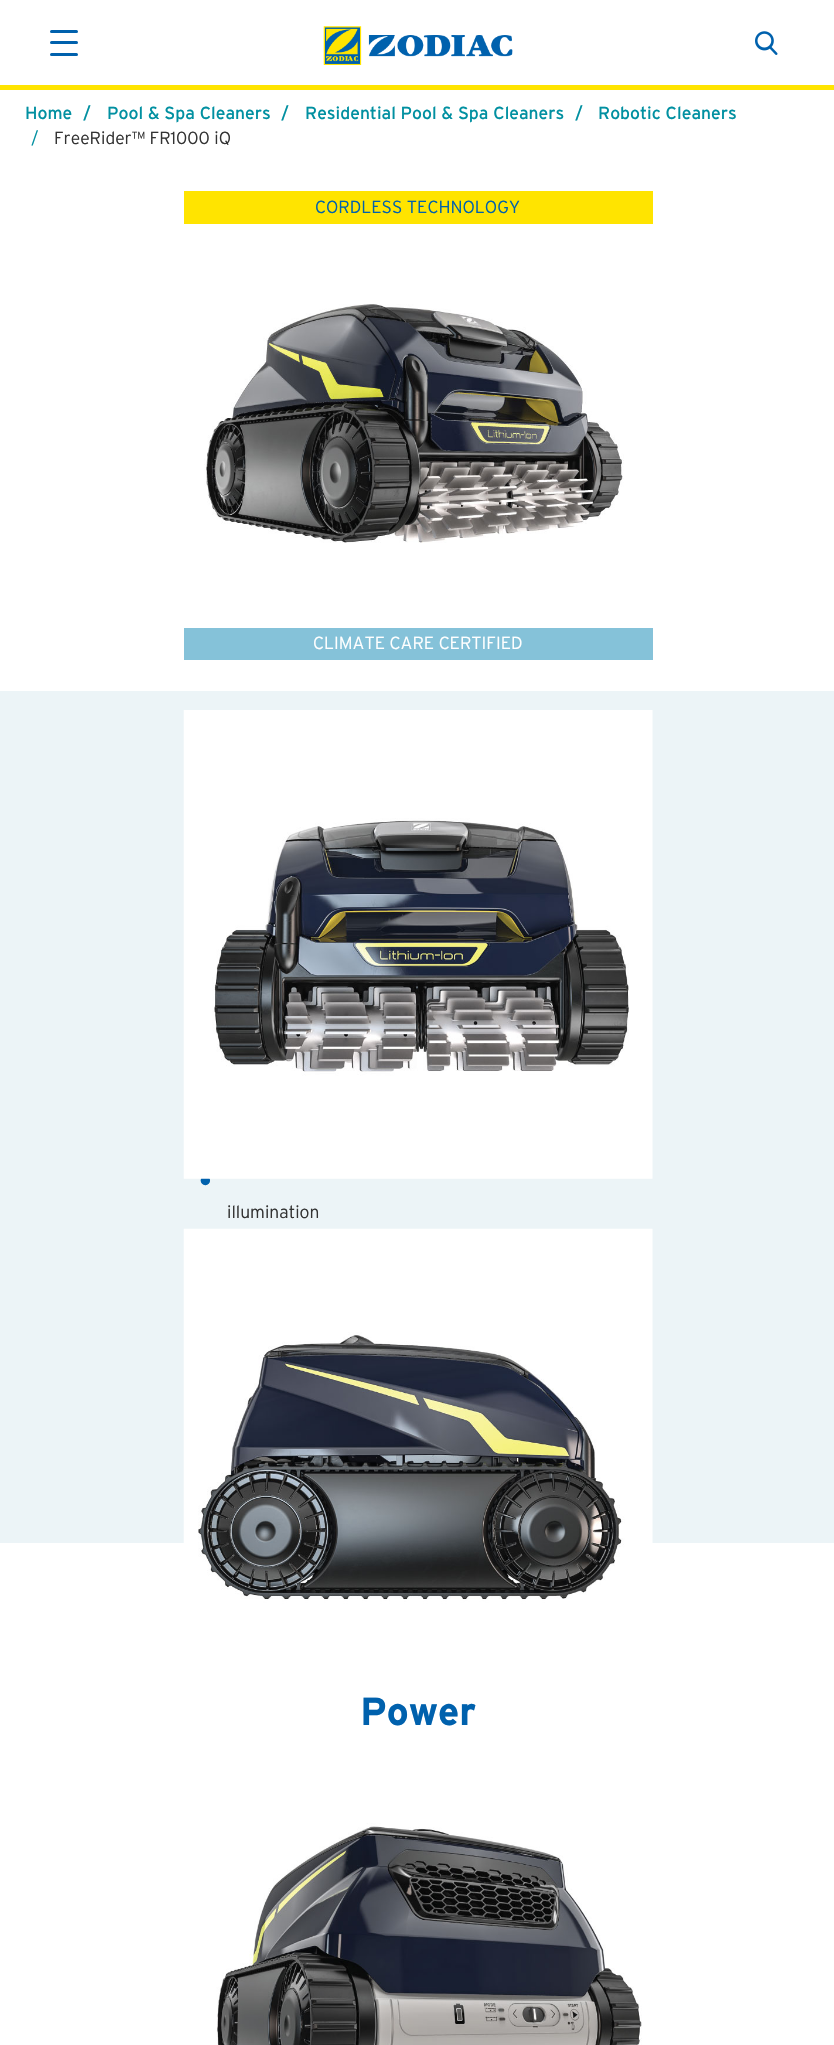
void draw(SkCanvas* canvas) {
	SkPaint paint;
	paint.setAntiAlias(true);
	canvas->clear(0xffffffff);
	paint.setColor(0xffffe400);
	canvas->drawRect(SkRect::MakeXYWH(0, 85, 834, 5), paint);
	paint.setColor(0xff0061ad);
	canvas->drawRoundRect(SkRect::MakeXYWH(50, 30, 28, 3), 1.5, 1.5, paint);
	canvas->drawRoundRect(SkRect::MakeXYWH(50, 41, 28, 3), 1.5, 1.5, paint);
	canvas->drawRoundRect(SkRect::MakeXYWH(50, 53, 28, 3), 1.5, 1.5, paint);
	canvas->drawImageRect(SkImages::DeferredFromEncodedData(SkData::MakeFromFileName("img1.png")), SkRect::MakeXYWH(323, 26, 190, 39), SkSamplingOptions());
	canvas->drawImageRect(SkImages::DeferredFromEncodedData(SkData::MakeFromFileName("img2.png")), SkRect::MakeXYWH(755, 31, 23, 24), SkSamplingOptions());
	SkFont f1(fontMgr->matchFamilyStyle("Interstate", SkFontStyle::Normal()), 17.5);
	f1.setSubpixel(true);
	paint.setColor(0xff0190a1);
	canvas->drawString("Home", 25, 119, f1, paint);
	canvas->drawString("/", 83, 119, f1, paint);
	canvas->drawString("Pool & Spa Cleaners", 107, 119, f1, paint);
	canvas->drawString("/", 281, 119, f1, paint);
	canvas->drawString("Residential Pool & Spa Cleaners", 305, 119, f1, paint);
	canvas->drawString("/", 575, 119, f1, paint);
	canvas->drawString("Robotic Cleaners", 598, 119, f1, paint);
	SkFont f2(fontMgr->matchFamilyStyle("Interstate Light", SkFontStyle(300, SkFontStyle::kNormal_Width, SkFontStyle::kUpright_Slant)), 17.5);
	f2.setSubpixel(true);
	canvas->drawString("/", 31, 144, f2, paint);
	paint.setColor(0xff333333);
	canvas->drawString("FreeRider™ FR1000 iQ", 54, 144, f2, paint);
	paint.setColor(0xffecf4f7);
	canvas->drawRect(SkRect::MakeXYWH(0, 691, 834, 852), paint);
	paint.setColor(0xffffe400);
	canvas->drawRect(SkRect::MakeXYWH(184, 191, 469, 33), paint);
	paint.setColor(0xff0061ad);
	canvas->drawString("CORDLESS TECHNOLOGY", 315, 213, f2, paint);
	canvas->drawImageRect(SkImages::DeferredFromEncodedData(SkData::MakeFromFileName("img3.png")), SkRect::MakeXYWH(204, 304, 420, 239), SkSamplingOptions());
	SkFont f3(fontMgr->matchFamilyStyle("Interstate", SkFontStyle::Bold()), 26);
	f3.setSubpixel(true);
	canvas->drawString("•", 199, 1190, f3, paint);
	canvas->drawImageRect(SkImages::DeferredFromEncodedData(SkData::MakeFromFileName("img4.png")), SkRect::MakeXYWH(183, 710, 470, 469), SkSamplingOptions());
	SkFont f4(fontMgr->matchFamilyStyle("Interstate", SkFontStyle::Bold()), 39.5);
	f4.setSubpixel(true);
	canvas->drawString("Power", 360, 1725, f4, paint);
	canvas->drawImageRect(SkImages::DeferredFromEncodedData(SkData::MakeFromFileName("img5.png")), SkRect::MakeXYWH(183, 1228, 470, 470), SkSamplingOptions());
	canvas->drawImageRect(SkImages::DeferredFromEncodedData(SkData::MakeFromFileName("img6.png")), SkRect::MakeXYWH(209, 1767, 433, 278), SkSamplingOptions());
	paint.setColor(0xff85c2d9);
	canvas->drawRect(SkRect::MakeXYWH(184, 628, 469, 32), paint);
	paint.setColor(0xffffffff);
	canvas->drawString("CLIMATE CARE CERTIFIED", 313, 649, f2, paint);
	paint.setColor(0xff333333);
	canvas->drawString("illumination", 227, 1218, f2, paint);
}
